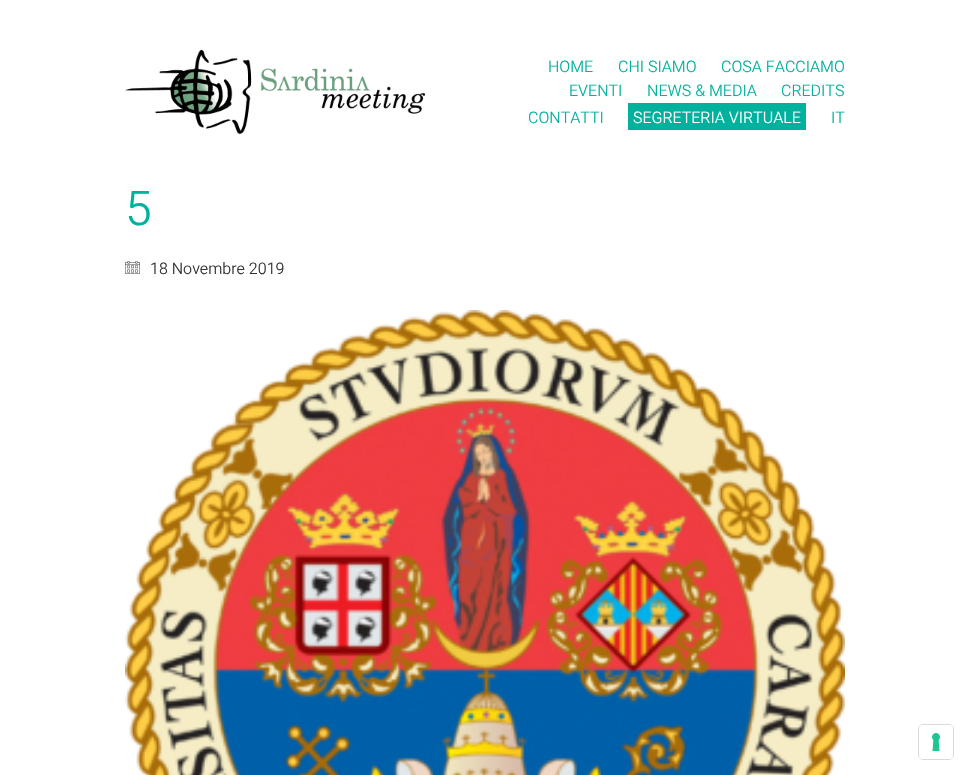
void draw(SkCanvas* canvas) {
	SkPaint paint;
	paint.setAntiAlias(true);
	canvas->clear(0xffffffff);
	canvas->drawImageRect(SkImages::DeferredFromEncodedData(SkData::MakeFromFileName("img1.png")), SkRect::MakeXYWH(125, 50, 300, 84), SkSamplingOptions());
	SkFont f1(fontMgr->matchFamilyStyle("Heebo", SkFontStyle(300, SkFontStyle::kNormal_Width, SkFontStyle::kUpright_Slant)), 16);
	f1.setSubpixel(true);
	paint.setColor(0xff00b19e);
	canvas->drawString("HOME", 548, 72, f1, paint);
	canvas->drawString("CHI SIAMO", 618, 72, f1, paint);
	canvas->drawString("COSA FACCIAMO", 721, 72, f1, paint);
	canvas->drawString("EVENTI", 569, 96, f1, paint);
	canvas->drawString("NEWS & MEDIA", 647, 96, f1, paint);
	canvas->drawString("CREDITS", 781, 96, f1, paint);
	canvas->drawString("CONTATTI", 528, 123, f1, paint);
	canvas->drawRect(SkRect::MakeXYWH(628, 103, 178, 27), paint);
	paint.setColor(0xffffffff);
	canvas->drawString("SEGRETERIA VIRTUALE", 633, 123, f1, paint);
	paint.setColor(0xff00b19e);
	canvas->drawString("IT", 831, 123, f1, paint);
	SkFont f2(fontMgr->matchFamilyStyle("Heebo", SkFontStyle(300, SkFontStyle::kNormal_Width, SkFontStyle::kUpright_Slant)), 48);
	f2.setSubpixel(true);
	canvas->drawString("5", 125, 225, f2, paint);
	canvas->drawImageRect(SkImages::DeferredFromEncodedData(SkData::MakeFromFileName("img2.png")), SkRect::MakeXYWH(125, 261, 15, 13), SkSamplingOptions());
	paint.setColor(0xff333333);
	canvas->drawString("18 Novembre 2019", 150, 274, f1, paint);
	canvas->drawImageRect(SkImages::DeferredFromEncodedData(SkData::MakeFromFileName("img3.png")), SkRect::MakeXYWH(125, 310, 720, 465), SkSamplingOptions());
	paint.setStroke(true);
	paint.setStrokeWidth(1);
	paint.setColor(0xffd9d9d9);
	canvas->drawRoundRect(SkRect::MakeXYWH(918.5, 724.5, 35, 35), 4.5, 4.5, paint);
	paint.setStroke(false);
	paint.setColor(0xffffffff);
	canvas->drawRoundRect(SkRect::MakeXYWH(919, 725, 34, 34), 4, 4, paint);
	canvas->drawImageRect(SkImages::DeferredFromEncodedData(SkData::MakeFromFileName("img4.png")), SkRect::MakeXYWH(932, 733, 8, 18), SkSamplingOptions());
}
